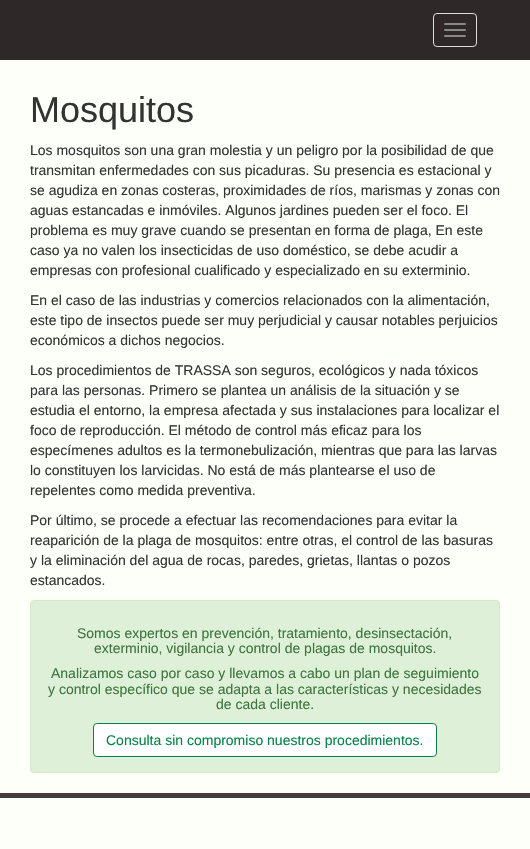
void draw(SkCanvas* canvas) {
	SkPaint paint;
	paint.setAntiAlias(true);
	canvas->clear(0xfffdfff9);
	paint.setColor(0xff2e2828);
	canvas->drawRect(SkRect::MakeXYWH(0, 0, 530, 60), paint);
	paint.setStroke(true);
	paint.setStrokeWidth(1);
	paint.setColor(0xffdddddd);
	canvas->drawRoundRect(SkRect::MakeXYWH(433.5, 13.5, 43, 33), 3.5, 3.5, paint);
	paint.setStroke(false);
	paint.setColor(0xff888888);
	canvas->drawRoundRect(SkRect::MakeXYWH(444, 23, 22, 2), 1, 1, paint);
	canvas->drawRoundRect(SkRect::MakeXYWH(444, 29, 22, 2), 1, 1, paint);
	canvas->drawRoundRect(SkRect::MakeXYWH(444, 35, 22, 2), 1, 1, paint);
	SkFont f1(fontMgr->matchFamilyStyle("Liberation Sans", SkFontStyle::Normal()), 36);
	f1.setSubpixel(true);
	paint.setColor(0xff333333);
	canvas->drawString("Mosquitos", 30, 122, f1, paint);
	SkFont f2(fontMgr->matchFamilyStyle("Liberation Sans", SkFontStyle::Normal()), 14);
	f2.setSubpixel(true);
	canvas->drawString("Los mosquitos son una gran molestia y un peligro por la posibilidad de que", 30, 155, f2, paint);
	canvas->drawString("transmitan enfermedades con sus picaduras. Su presencia es estacional y", 30, 175, f2, paint);
	canvas->drawString("se agudiza en zonas costeras, proximidades de ríos, marismas y zonas con", 30, 195, f2, paint);
	canvas->drawString("aguas estancadas e inmóviles. Algunos jardines pueden ser el foco. El", 30, 215, f2, paint);
	canvas->drawString("problema es muy grave cuando se presentan en forma de plaga, En este", 30, 235, f2, paint);
	canvas->drawString("caso ya no valen los insecticidas de uso doméstico, se debe acudir a", 30, 255, f2, paint);
	canvas->drawString("empresas con profesional cualificado y especializado en su exterminio.", 30, 275, f2, paint);
	canvas->drawString("En el caso de las industrias y comercios relacionados con la alimentación,", 30, 305, f2, paint);
	canvas->drawString("este tipo de insectos puede ser muy perjudicial y causar notables perjuicios", 30, 325, f2, paint);
	canvas->drawString("económicos a dichos negocios.", 30, 345, f2, paint);
	canvas->drawString("Los procedimientos de TRASSA son seguros, ecológicos y nada tóxicos", 30, 375, f2, paint);
	canvas->drawString("para las personas. Primero se plantea un análisis de la situación y se", 30, 395, f2, paint);
	canvas->drawString("estudia el entorno, la empresa afectada y sus instalaciones para localizar el", 30, 415, f2, paint);
	canvas->drawString("foco de reproducción. El método de control más eficaz para los", 30, 435, f2, paint);
	canvas->drawString("especímenes adultos es la termonebulización, mientras que para las larvas", 30, 455, f2, paint);
	canvas->drawString("lo constituyen los larvicidas. No está de más plantearse el uso de", 30, 475, f2, paint);
	canvas->drawString("repelentes como medida preventiva.", 30, 495, f2, paint);
	canvas->drawString("Por último, se procede a efectuar las recomendaciones para evitar la", 30, 525, f2, paint);
	canvas->drawString("reaparición de la plaga de mosquitos: entre otras, el control de las basuras", 30, 545, f2, paint);
	canvas->drawString("y la eliminación del agua de rocas, paredes, grietas, llantas o pozos", 30, 565, f2, paint);
	canvas->drawString("estancados.", 30, 585, f2, paint);
	paint.setColor(0xffdff0d8);
	canvas->drawRoundRect(SkRect::MakeXYWH(30.5, 600.5, 469, 172), 3.5, 3.5, paint);
	paint.setStroke(true);
	paint.setColor(0xffd6e9c6);
	canvas->drawRoundRect(SkRect::MakeXYWH(30.5, 600.5, 469, 172), 3.5, 3.5, paint);
	paint.setStroke(false);
	paint.setColor(0xff3c763d);
	canvas->drawString("Somos expertos en prevención, tratamiento, desinsectación,", 77, 638, f2, paint);
	canvas->drawString("exterminio, vigilancia y control de plagas de mosquitos.", 94, 653, f2, paint);
	canvas->drawString("Analizamos caso por caso y llevamos a cabo un plan de seguimiento", 51, 678, f2, paint);
	canvas->drawString("y control específico que se adapta a las características y necesidades", 48, 694, f2, paint);
	canvas->drawString("de cada cliente.", 216, 709, f2, paint);
	paint.setColor(0xffffffff);
	canvas->drawRoundRect(SkRect::MakeXYWH(93.5, 723.5, 343, 33), 3.5, 3.5, paint);
	paint.setStroke(true);
	paint.setColor(0xff048248);
	canvas->drawRoundRect(SkRect::MakeXYWH(93.5, 723.5, 343, 33), 3.5, 3.5, paint);
	paint.setStroke(false);
	canvas->drawString("Consulta sin compromiso nuestros procedimientos.", 106, 745, f2, paint);
	paint.setColor(0xff433e3d);
	canvas->drawRect(SkRect::MakeXYWH(0, 793, 530, 5), paint);
}
